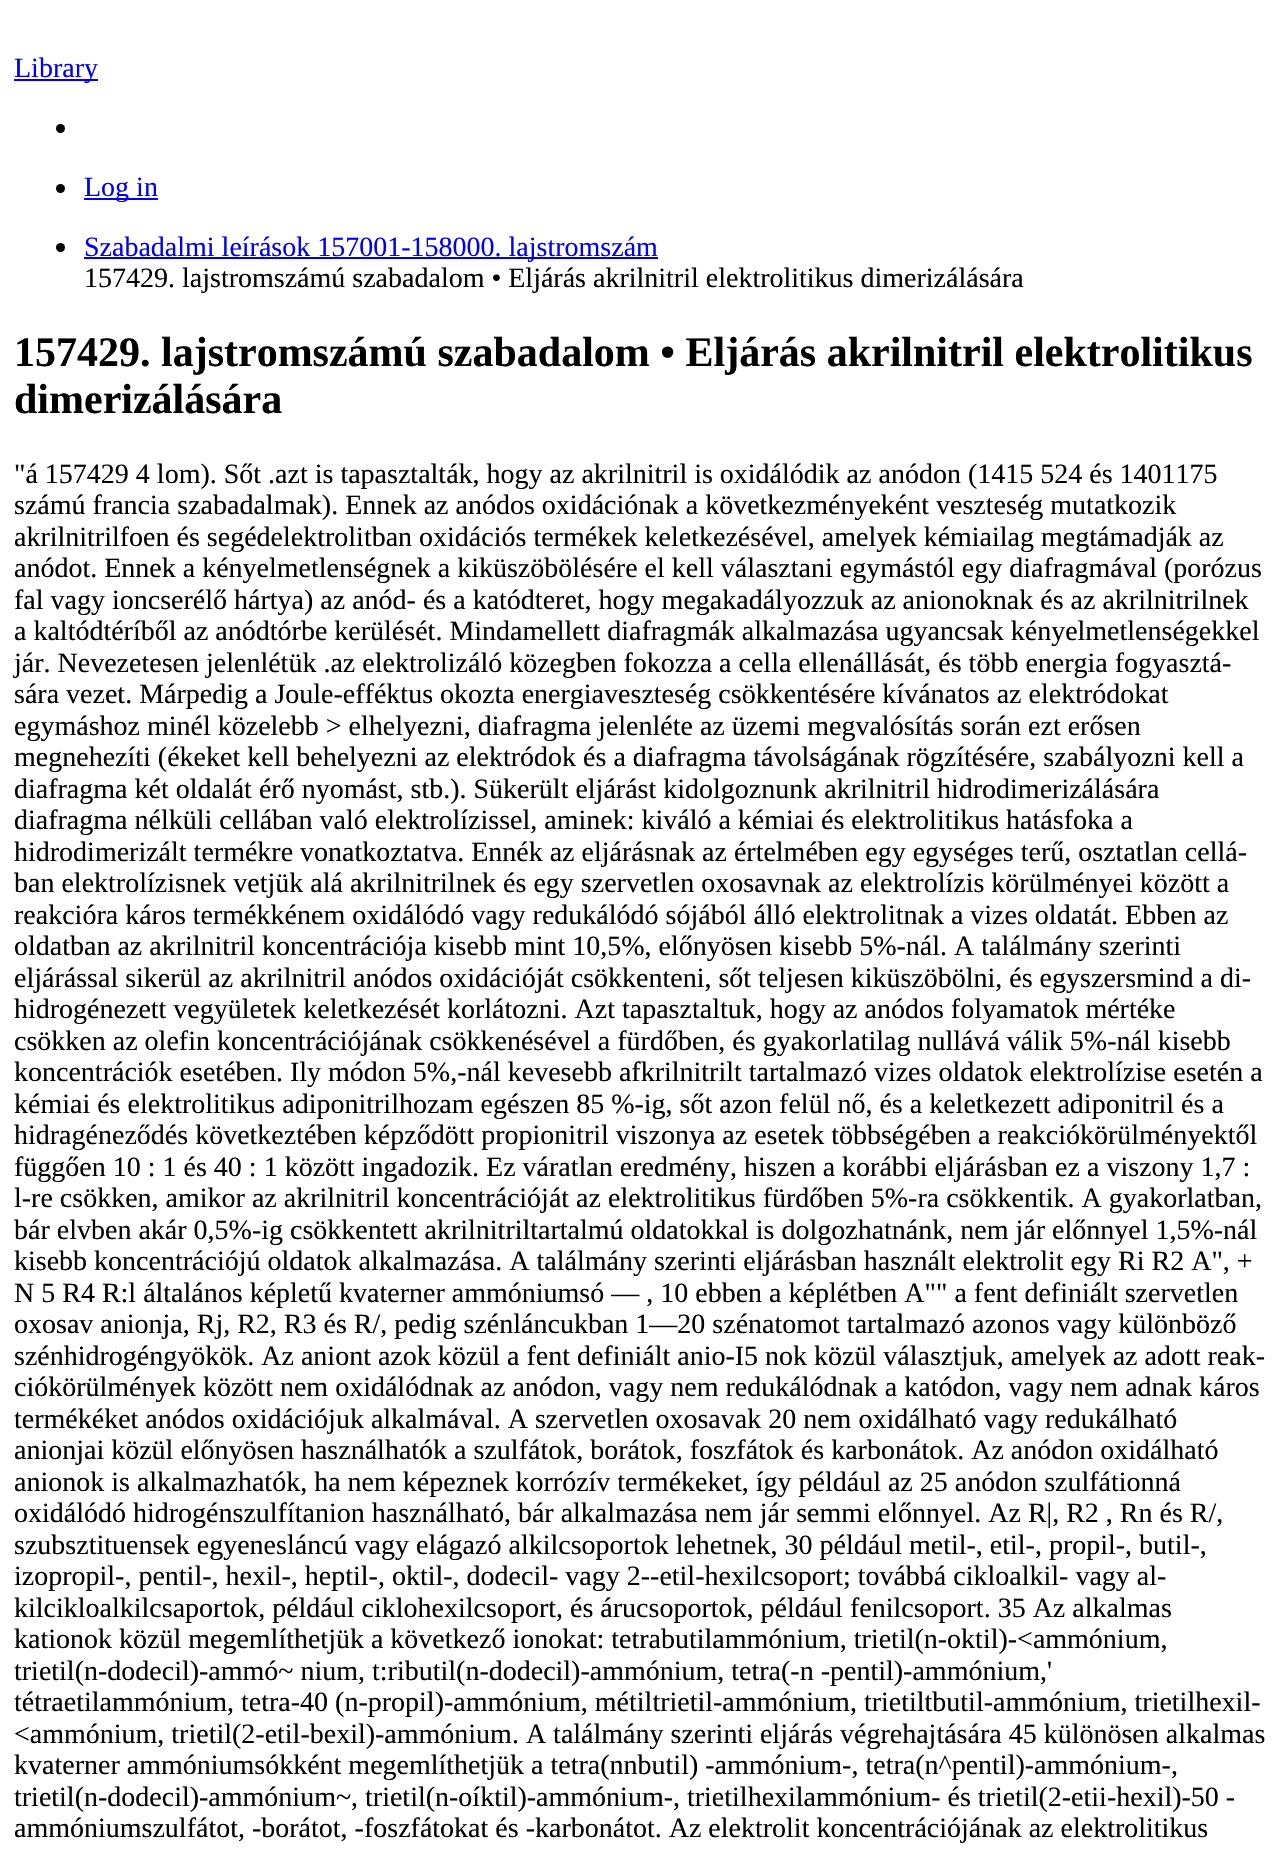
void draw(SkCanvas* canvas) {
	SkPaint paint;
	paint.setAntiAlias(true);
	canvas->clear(0xffffffff);
	paint.setColor(0xff0000ee);
	canvas->drawRect(SkRect::MakeXYWH(14, 79, 84, 2), paint);
	SkFont f1(fontMgr->matchFamilyStyle("Liberation Serif", SkFontStyle::Normal()), 28);
	f1.setSubpixel(true);
	canvas->drawString("Library", 14, 77, f1, paint);
	paint.setColor(0xff000000);
	canvas->drawCircle(60.5, 128.5, 4.5, paint);
	canvas->drawCircle(60.5, 188.5, 4.5, paint);
	paint.setColor(0xff0000ee);
	canvas->drawRect(SkRect::MakeXYWH(84, 198, 74, 2), paint);
	canvas->drawString("Log in", 84, 196, f1, paint);
	paint.setColor(0xff000000);
	canvas->drawCircle(60.5, 247.5, 4.5, paint);
	paint.setColor(0xff0000ee);
	canvas->drawRect(SkRect::MakeXYWH(84, 257, 574, 2), paint);
	canvas->drawString("Szabadalmi leírások 157001-158000. lajstromszám", 84, 256, f1, paint);
	paint.setColor(0xff000000);
	canvas->drawString("157429. lajstromszámú szabadalom • Eljárás akrilnitril elektrolitikus dimerizálására", 84, 287, f1, paint);
	SkFont f2(fontMgr->matchFamilyStyle("Liberation Serif", SkFontStyle::Bold()), 42);
	f2.setSubpixel(true);
	canvas->drawString("157429. lajstromszámú szabadalom • Eljárás akrilnitril elektrolitikus", 14, 366, f2, paint);
	canvas->drawString("dimerizálására", 14, 413, f2, paint);
	canvas->drawString("\"á 157429 4 lom). Sőt .azt is tapasztalták, hogy az akrilnitril is oxidálódik az anódon (1415 524 és 1401175", 14, 483, f1, paint);
	canvas->drawString("számú francia szabadalmak). Ennek az anódos oxidációnak a következményeként veszteség mutatkozik", 14, 514, f1, paint);
	canvas->drawString("akrilnitrilfoen és segédelektrolitban oxidációs termékek keletkezésével, amelyek kémiailag megtámadják az", 14, 546, f1, paint);
	canvas->drawString("anódot. Ennek a kényelmetlenségnek a kiküszöbölésére el kell választani egymástól egy diafragmával (porózus", 14, 577, f1, paint);
	canvas->drawString("fal vagy ioncserélő hártya) az anód- és a katódteret, hogy megakadályozzuk az anionoknak és az akrilnitrilnek", 14, 609, f1, paint);
	canvas->drawString("a kaltódtéríből az anódtórbe kerülését. Mindamellett diafragmák alkalmazása ugyancsak kényelmetlenségekkel", 14, 640, f1, paint);
	canvas->drawString("jár. Nevezetesen jelenlétük .az elektrolizáló közegben fokozza a cella ellenállását, és több energia fogyasztá-", 14, 672, f1, paint);
	canvas->drawString("sára vezet. Márpedig a Joule-efféktus okozta energiaveszteség csökkentésére kívánatos az elektródokat", 14, 703, f1, paint);
	canvas->drawString("egymáshoz minél közelebb > elhelyezni, diafragma jelenléte az üzemi megvalósítás során ezt erősen", 14, 735, f1, paint);
	canvas->drawString("megnehezíti (ékeket kell behelyezni az elektródok és a diafragma távolságának rögzítésére, szabályozni kell a", 14, 766, f1, paint);
	canvas->drawString("diafragma két oldalát érő nyomást, stb.). Sükerült eljárást kidolgoznunk akrilnitril hidrodimerizálására", 14, 798, f1, paint);
	canvas->drawString("diafragma nélküli cellában való elektrolízissel, aminek: kiváló a kémiai és elektrolitikus hatásfoka a", 14, 829, f1, paint);
	canvas->drawString("hidrodimerizált termékre vonatkoztatva. Ennék az eljárásnak az értelmében egy egységes terű, osztatlan cellá-", 14, 861, f1, paint);
	canvas->drawString("ban elektrolízisnek vetjük alá akrilnitrilnek és egy szervetlen oxosavnak az elektrolízis körülményei között a", 14, 892, f1, paint);
	canvas->drawString("reakcióra káros termékkénem oxidálódó vagy redukálódó sójából álló elektrolitnak a vizes oldatát. Ebben az", 14, 924, f1, paint);
	canvas->drawString("oldatban az akrilnitril koncentrációja kisebb mint 10,5%, előnyösen kisebb 5%-nál. A találmány szerinti", 14, 955, f1, paint);
	canvas->drawString("eljárással sikerül az akrilnitril anódos oxidációját csökkenteni, sőt teljesen kiküszöbölni, és egyszersmind a di-", 14, 987, f1, paint);
	canvas->drawString("hidrogénezett vegyületek keletkezését korlátozni. Azt tapasztaltuk, hogy az anódos folyamatok mértéke", 14, 1018, f1, paint);
	canvas->drawString("csökken az olefin koncentrációjának csökkenésével a fürdőben, és gyakorlatilag nullává válik 5%-nál kisebb", 14, 1050, f1, paint);
	canvas->drawString("koncentrációk esetében. Ily módon 5%,-nál kevesebb afkrilnitrilt tartalmazó vizes oldatok elektrolízise esetén a", 14, 1081, f1, paint);
	canvas->drawString("kémiai és elektrolitikus adiponitrilhozam egészen 85 %-ig, sőt azon felül nő, és a keletkezett adiponitril és a", 14, 1113, f1, paint);
	canvas->drawString("hidragéneződés következtében képződött propionitril viszonya az esetek többségében a reakciókörülményektől", 14, 1144, f1, paint);
	canvas->drawString("függően 10 : 1 és 40 : 1 között ingadozik. Ez váratlan eredmény, hiszen a korábbi eljárásban ez a viszony 1,7 :", 14, 1176, f1, paint);
	canvas->drawString("l-re csökken, amikor az akrilnitril koncentrációját az elektrolitikus fürdőben 5%-ra csökkentik. A gyakorlatban,", 14, 1207, f1, paint);
	canvas->drawString("bár elvben akár 0,5%-ig csökkentett akrilnitriltartalmú oldatokkal is dolgozhatnánk, nem jár előnnyel 1,5%-nál", 14, 1239, f1, paint);
	canvas->drawString("kisebb koncentrációjú oldatok alkalmazása. A találmány szerinti eljárásban használt elektrolit egy Ri R2 A\", +", 14, 1270, f1, paint);
	canvas->drawString("N 5 R4 R:l általános képletű kvaterner ammóniumsó — , 10 ebben a képlétben A\"\" a fent definiált szervetlen", 14, 1302, f1, paint);
	canvas->drawString("oxosav anionja, Rj, R2, R3 és R/, pedig szénláncukban 1—20 szénatomot tartalmazó azonos vagy különböző", 14, 1333, f1, paint);
	canvas->drawString("szénhidrogéngyökök. Az aniont azok közül a fent definiált anio-I5 nok közül választjuk, amelyek az adott reak-", 14, 1365, f1, paint);
	canvas->drawString("ciókörülmények között nem oxidálódnak az anódon, vagy nem redukálódnak a katódon, vagy nem adnak káros", 14, 1396, f1, paint);
	canvas->drawString("termékéket anódos oxidációjuk alkalmával. A szervetlen oxosavak 20 nem oxidálható vagy redukálható", 14, 1428, f1, paint);
	canvas->drawString("anionjai közül előnyösen használhatók a szulfátok, borátok, foszfátok és karbonátok. Az anódon oxidálható", 14, 1459, f1, paint);
	canvas->drawString("anionok is alkalmazhatók, ha nem képeznek korrózív termékeket, így például az 25 anódon szulfátionná", 14, 1491, f1, paint);
	canvas->drawString("oxidálódó hidrogénszulfítanion használható, bár alkalmazása nem jár semmi előnnyel. Az R|, R2 , Rn és R/,", 14, 1522, f1, paint);
	canvas->drawString("szubsztituensek egyenesláncú vagy elágazó alkilcsoportok lehetnek, 30 például metil-, etil-, propil-, butil-,", 14, 1554, f1, paint);
	canvas->drawString("izopropil-, pentil-, hexil-, heptil-, oktil-, dodecil- vagy 2--etil-hexilcsoport; továbbá cikloalkil- vagy al-", 14, 1585, f1, paint);
	canvas->drawString("kilcikloalkilcsaportok, például ciklohexilcsoport, és árucsoportok, például fenilcsoport. 35 Az alkalmas", 14, 1617, f1, paint);
	canvas->drawString("kationok közül megemlíthetjük a következő ionokat: tetrabutilammónium, trietil(n-oktil)-<ammónium,", 14, 1648, f1, paint);
	canvas->drawString("trietil(n-dodecil)-ammó~ nium, t:ributil(n-dodecil)-ammónium, tetra(-n -pentil)-ammónium,'", 14, 1680, f1, paint);
	canvas->drawString("tétraetilammónium, tetra-40 (n-propil)-ammónium, métiltrietil-ammónium, trietiltbutil-ammónium, trietilhexil-", 14, 1711, f1, paint);
	canvas->drawString("<ammónium, trietil(2-etil-bexil)-ammónium. A találmány szerinti eljárás végrehajtására 45 különösen alkalmas", 14, 1743, f1, paint);
	canvas->drawString("kvaterner ammóniumsókként megemlíthetjük a tetra(nnbutil) -ammónium-, tetra(n^pentil)-ammónium-,", 14, 1774, f1, paint);
	canvas->drawString("trietil(n-dodecil)-ammónium~, trietil(n-oíktil)-ammónium-, trietilhexilammónium- és trietil(2-etii-hexil)-50 -", 14, 1806, f1, paint);
	canvas->drawString("ammóniumszulfátot, -borátot, -foszfátokat és -karbonátot. Az elektrolit koncentrációjának az elektrolitikus", 14, 1837, f1, paint);
}
